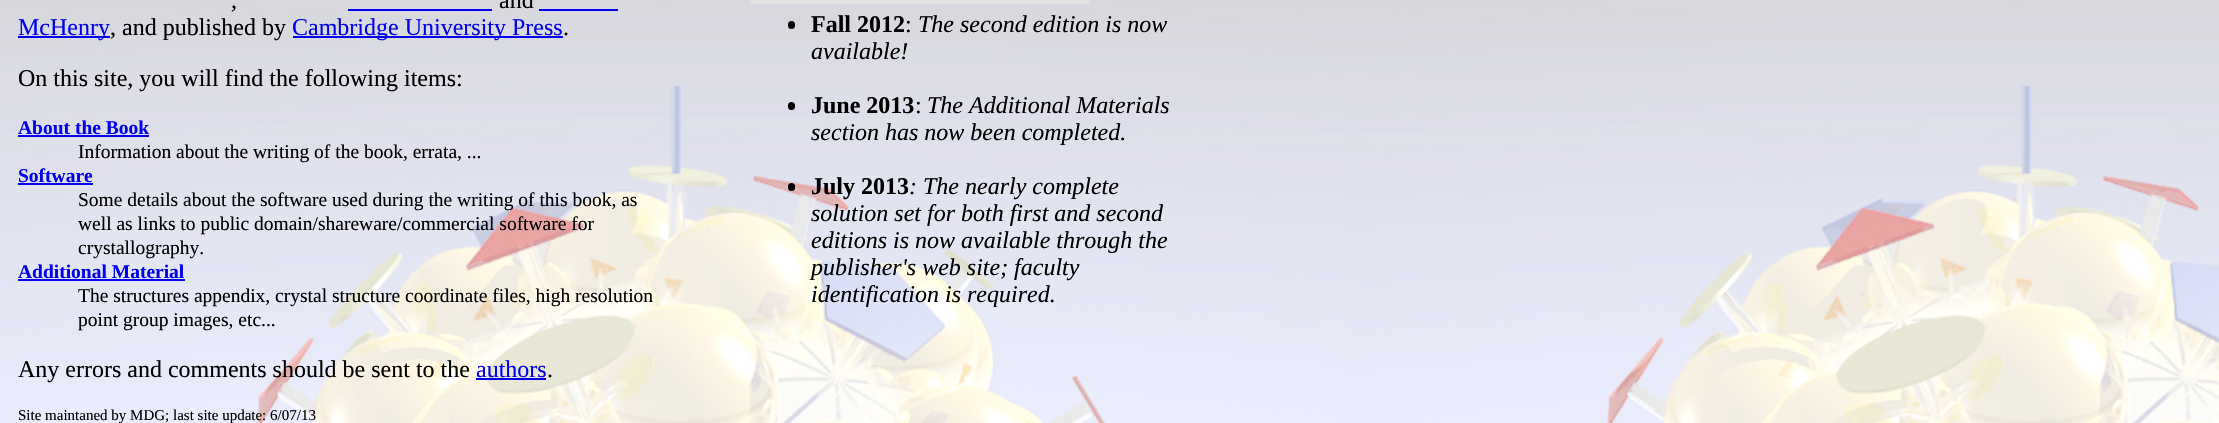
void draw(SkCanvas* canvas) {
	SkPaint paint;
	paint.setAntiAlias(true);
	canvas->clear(0xffffffff);
	canvas->drawImageRect(SkImages::DeferredFromEncodedData(SkData::MakeFromFileName("img1.png")), SkRect::MakeXYWH(0, 0, 2219, 423), SkSamplingOptions());
	SkFont f1(fontMgr->matchFamilyStyle("Liberation Serif", SkFontStyle::Italic()), 24);
	f1.setSubpixel(true);
	paint.setColor(0xff000000);
	canvas->drawString(",", 231, 8, f1, paint);
	paint.setColor(0xff0000ee);
	canvas->drawRect(SkRect::MakeXYWH(348, 9, 144, 2), paint);
	SkFont f2(fontMgr->matchFamilyStyle("Liberation Serif", SkFontStyle::Normal()), 24);
	f2.setSubpixel(true);
	paint.setColor(0xff000000);
	canvas->drawString("and", 499, 8, f2, paint);
	paint.setColor(0xff0000ee);
	canvas->drawRect(SkRect::MakeXYWH(18, 36, 92, 2), paint);
	canvas->drawString("McHenry", 18, 35, f2, paint);
	canvas->drawRect(SkRect::MakeXYWH(539, 9, 79, 2), paint);
	paint.setColor(0xff000000);
	canvas->drawString(", and published by", 110, 35, f2, paint);
	paint.setColor(0xff0000ee);
	canvas->drawRect(SkRect::MakeXYWH(293, 36, 270, 2), paint);
	canvas->drawString("Cambridge University Press", 292, 35, f2, paint);
	paint.setColor(0xff000000);
	canvas->drawString(".", 563, 35, f2, paint);
	canvas->drawString("On this site, you will find the following items:", 18, 86, f2, paint);
	SkFont f3(fontMgr->matchFamilyStyle("Liberation Serif", SkFontStyle::Bold()), 19.5);
	f3.setSubpixel(true);
	paint.setColor(0xff0000ee);
	canvas->drawString("About the Book", 18, 134, f3, paint);
	canvas->drawRect(SkRect::MakeXYWH(18, 135, 131, 2), paint);
	SkFont f4(fontMgr->matchFamilyStyle("Liberation Serif", SkFontStyle::Normal()), 19.5);
	f4.setSubpixel(true);
	paint.setColor(0xff000000);
	canvas->drawString("Information about the writing of the book, errata, ...", 78, 158, f4, paint);
	paint.setColor(0xff0000ee);
	canvas->drawString("Software", 18, 182, f3, paint);
	canvas->drawRect(SkRect::MakeXYWH(18, 183, 75, 2), paint);
	paint.setColor(0xff000000);
	canvas->drawString("Some details about the software used during the writing of this book, as", 78, 206, f4, paint);
	canvas->drawString("well as links to public domain/shareware/commercial software for", 78, 230, f4, paint);
	canvas->drawString("crystallography.", 78, 254, f4, paint);
	paint.setColor(0xff0000ee);
	canvas->drawString("Additional Material", 18, 278, f3, paint);
	canvas->drawRect(SkRect::MakeXYWH(18, 279, 167, 2), paint);
	paint.setColor(0xff000000);
	canvas->drawString("The structures appendix, crystal structure coordinate files, high resolution", 78, 302, f4, paint);
	canvas->drawString("point group images, etc...", 78, 326, f4, paint);
	canvas->drawString("Any errors and comments should be sent to the", 18, 377, f2, paint);
	paint.setColor(0xff0000ee);
	canvas->drawString("authors", 476, 377, f2, paint);
	canvas->drawRect(SkRect::MakeXYWH(476, 378, 70, 2), paint);
	paint.setColor(0xff000000);
	canvas->drawString(".", 547, 377, f2, paint);
	SkFont f5(fontMgr->matchFamilyStyle("Liberation Serif", SkFontStyle::Normal()), 15);
	f5.setSubpixel(true);
	canvas->drawString("Site maintaned by MDG; last site update: 6/07/13", 18, 420, f5, paint);
	paint.setColor(0xffe3e3e3);
	canvas->drawRect(SkRect::MakeXYWH(751, 0, 338, 4), paint);
	paint.setColor(0xff000000);
	canvas->drawRoundRect(SkRect::MakeXYWH(788, 21, 7, 8), 3.5, 3.5, paint);
	SkFont f6(fontMgr->matchFamilyStyle("Liberation Serif", SkFontStyle::Bold()), 24);
	f6.setSubpixel(true);
	canvas->drawString("Fall 2012", 811, 32, f6, paint);
	canvas->drawString(":", 905, 32, f2, paint);
	canvas->drawString("The second edition is now", 918, 32, f1, paint);
	canvas->drawString("available!", 811, 59, f1, paint);
	canvas->drawRoundRect(SkRect::MakeXYWH(788, 102, 7, 8), 3.5, 3.5, paint);
	canvas->drawString("June 2013", 811, 113, f6, paint);
	canvas->drawString(":", 915, 113, f2, paint);
	canvas->drawString("The Additional Materials", 927, 113, f1, paint);
	canvas->drawString("section has now been completed.", 811, 140, f1, paint);
	canvas->drawRoundRect(SkRect::MakeXYWH(788, 183, 7, 8), 3.5, 3.5, paint);
	canvas->drawString("July 2013", 811, 194, f6, paint);
	canvas->drawString(": The nearly complete", 909, 194, f1, paint);
	canvas->drawString("solution set for both first and second", 811, 221, f1, paint);
	canvas->drawString("editions is now available through the", 811, 248, f1, paint);
	canvas->drawString("publisher's web site; faculty", 811, 275, f1, paint);
	canvas->drawString("identification is required.", 811, 302, f1, paint);
}
